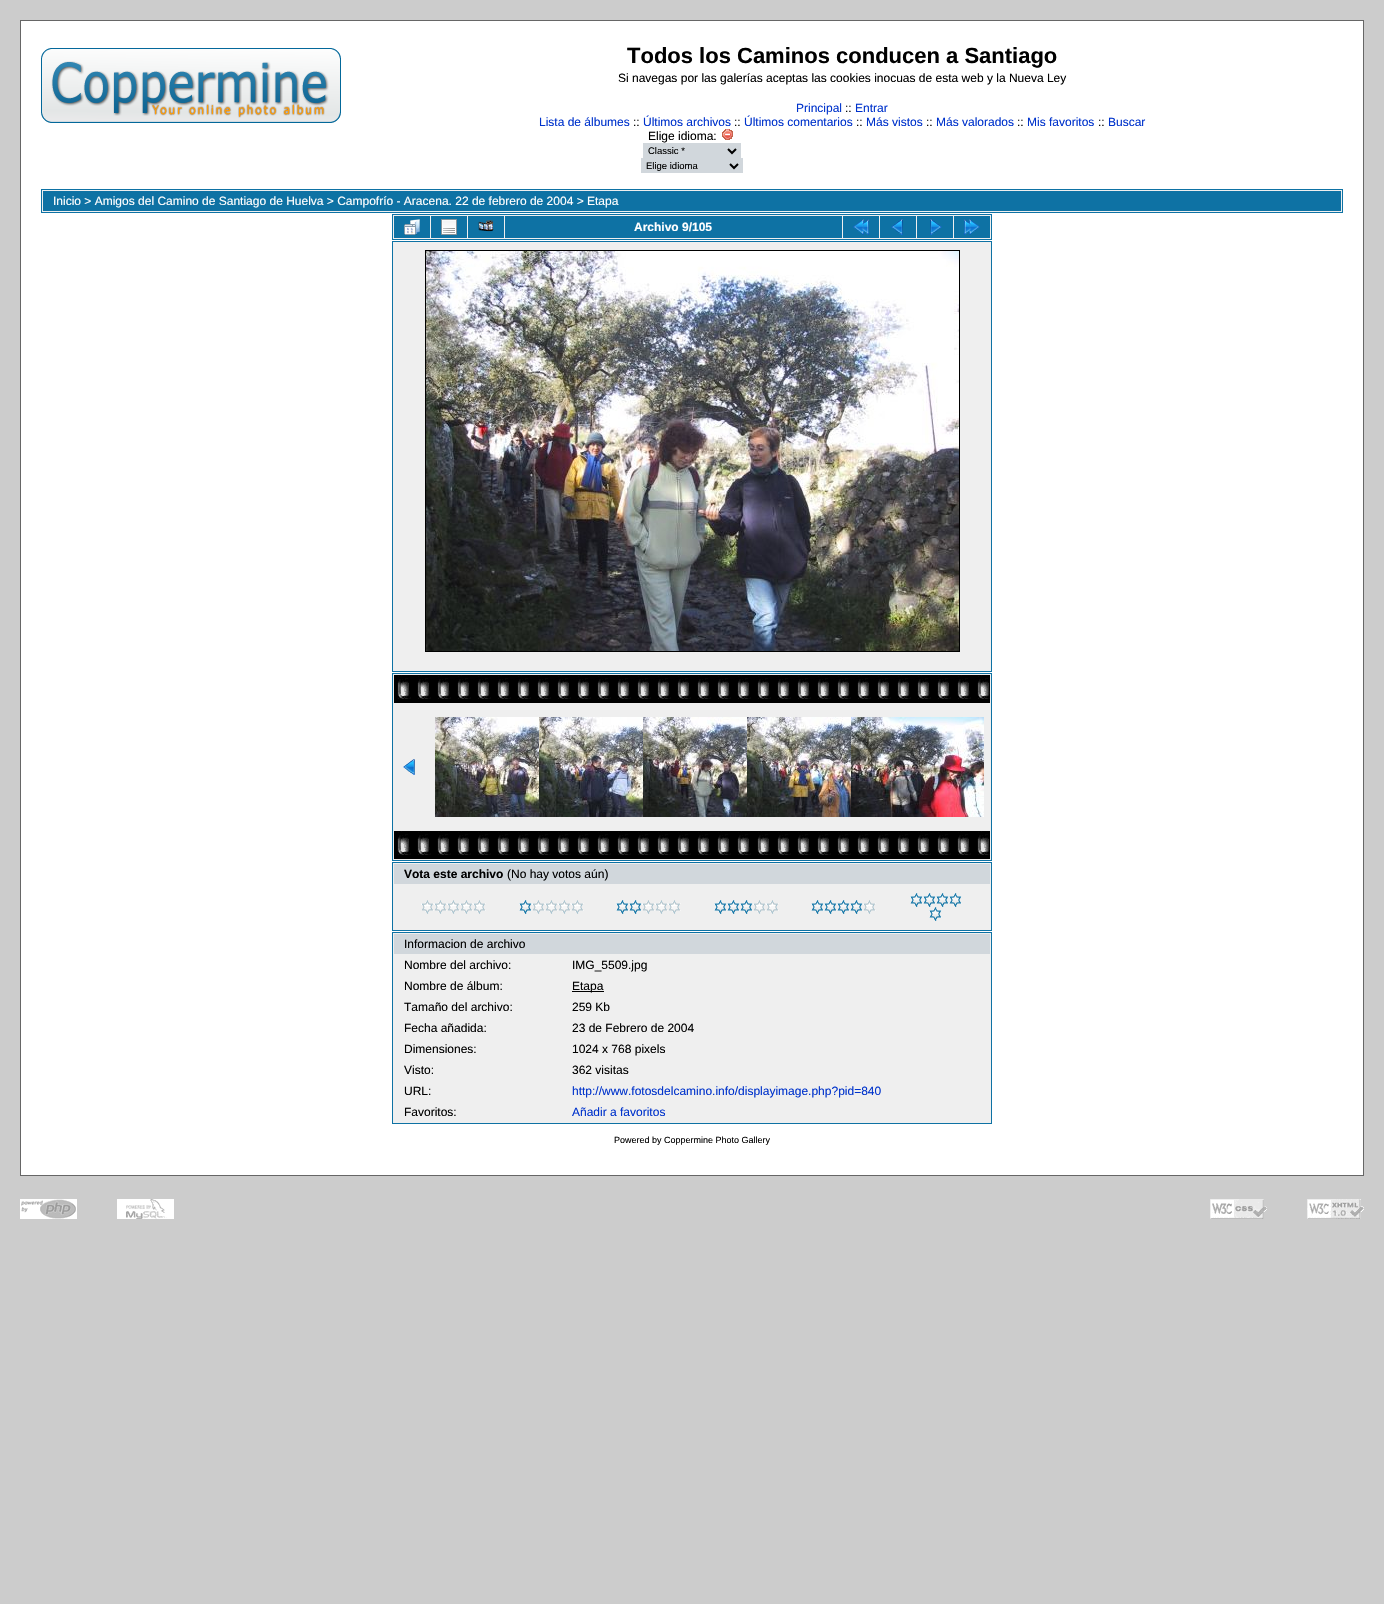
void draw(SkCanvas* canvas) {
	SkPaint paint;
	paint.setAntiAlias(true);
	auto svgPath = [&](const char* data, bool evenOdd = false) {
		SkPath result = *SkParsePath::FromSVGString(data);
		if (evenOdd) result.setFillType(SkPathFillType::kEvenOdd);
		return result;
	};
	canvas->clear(0xffcccccc);
	paint.setColor(0xffffffff);
	canvas->drawRect(SkRect::MakeXYWH(20.5, 20.5, 1343, 1155), paint);
	paint.setStroke(true);
	paint.setStrokeWidth(1);
	paint.setColor(0xff666666);
	canvas->drawRect(SkRect::MakeXYWH(20.5, 20.5, 1343, 1155), paint);
	canvas->drawImageRect(SkImages::DeferredFromEncodedData(SkData::MakeFromFileName("img1.png")), SkRect::MakeXYWH(41, 48, 300, 75), SkSamplingOptions());
	SkFont f1(fontMgr->matchFamilyStyle("Liberation Sans", SkFontStyle::Bold()), 22);
	f1.setSubpixel(true);
	paint.setStroke(false);
	paint.setColor(0xff000000);
	canvas->drawString("Todos los Caminos conducen a Santiago", 627, 63, f1, paint);
	SkFont f2(fontMgr->matchFamilyStyle("Liberation Sans", SkFontStyle::Normal()), 12);
	f2.setSubpixel(true);
	canvas->drawString("Si navegas por las galerías aceptas las cookies inocuas de esta web y la Nueva Ley", 618, 82, f2, paint);
	paint.setColor(0xff0033cc);
	canvas->drawString("Principal", 796, 112, f2, paint);
	paint.setColor(0xff000000);
	canvas->drawString("::", 845, 112, f2, paint);
	paint.setColor(0xff0033cc);
	canvas->drawString("Entrar", 855, 112, f2, paint);
	canvas->drawString("Lista de álbumes", 539, 126, f2, paint);
	paint.setColor(0xff000000);
	canvas->drawString("::", 633, 126, f2, paint);
	paint.setColor(0xff0033cc);
	canvas->drawString("Últimos archivos", 643, 126, f2, paint);
	paint.setColor(0xff000000);
	canvas->drawString("::", 734, 126, f2, paint);
	paint.setColor(0xff0033cc);
	canvas->drawString("Últimos comentarios", 744, 126, f2, paint);
	paint.setColor(0xff000000);
	canvas->drawString("::", 856, 126, f2, paint);
	paint.setColor(0xff0033cc);
	canvas->drawString("Más vistos", 866, 126, f2, paint);
	paint.setColor(0xff000000);
	canvas->drawString("::", 926, 126, f2, paint);
	paint.setColor(0xff0033cc);
	canvas->drawString("Más valorados", 936, 126, f2, paint);
	paint.setColor(0xff000000);
	canvas->drawString("::", 1017, 126, f2, paint);
	paint.setColor(0xff0033cc);
	canvas->drawString("Mis favoritos", 1027, 126, f2, paint);
	paint.setColor(0xff000000);
	canvas->drawString("::", 1098, 126, f2, paint);
	paint.setColor(0xff0033cc);
	canvas->drawString("Buscar", 1108, 126, f2, paint);
	paint.setColor(0xff000000);
	canvas->drawString("Elige idioma:", 648, 140, f2, paint);
	canvas->drawImageRect(SkImages::DeferredFromEncodedData(SkData::MakeFromFileName("img2.png")), SkRect::MakeXYWH(722, 129, 11, 11), SkSamplingOptions());
	paint.setColor(0xffd1d7dc);
	canvas->drawRect(SkRect::MakeXYWH(643, 143, 98, 15), paint);
	paint.setStroke(true);
	paint.setStrokeWidth(2);
	paint.setColor(0xff000000);
	canvas->drawPath(svgPath("M728 149L732 153L736 149"), paint);
	SkFont f3(fontMgr->matchFamilyStyle("Liberation Sans", SkFontStyle::Normal()), 9.5);
	f3.setSubpixel(true);
	paint.setStroke(false);
	canvas->drawString("Classic *", 648, 154, f3, paint);
	paint.setColor(0xffd1d7dc);
	canvas->drawRect(SkRect::MakeXYWH(641, 158, 102, 15), paint);
	paint.setStroke(true);
	paint.setColor(0xff000000);
	canvas->drawPath(svgPath("M730 164L734 168L738 164"), paint);
	paint.setStroke(false);
	canvas->drawString("Elige idioma", 646, 169, f3, paint);
	paint.setColor(0xffefefef);
	canvas->drawRect(SkRect::MakeXYWH(41.5, 189.5, 1301, 23), paint);
	paint.setStroke(true);
	paint.setStrokeWidth(1);
	paint.setColor(0xff0e72a4);
	canvas->drawRect(SkRect::MakeXYWH(41.5, 189.5, 1301, 23), paint);
	paint.setStroke(false);
	canvas->drawRect(SkRect::MakeXYWH(43, 191, 1298, 20), paint);
	paint.setColor(0xffffffff);
	canvas->drawString("Inicio > Amigos del Camino de Santiago de Huelva > Campofrío - Aracena. 22 de febrero de 2004 > Etapa", 53, 205, f2, paint);
	paint.setColor(0xffefefef);
	canvas->drawRect(SkRect::MakeXYWH(392.5, 214.5, 599, 25), paint);
	paint.setStroke(true);
	paint.setColor(0xff0e72a4);
	canvas->drawRect(SkRect::MakeXYWH(392.5, 214.5, 599, 25), paint);
	paint.setStroke(false);
	canvas->drawRect(SkRect::MakeXYWH(394, 216, 36, 22), paint);
	canvas->drawImageRect(SkImages::DeferredFromEncodedData(SkData::MakeFromFileName("img3.png")), SkRect::MakeXYWH(404, 219, 16, 16), SkSamplingOptions());
	canvas->drawRect(SkRect::MakeXYWH(431, 216, 36, 22), paint);
	canvas->drawImageRect(SkImages::DeferredFromEncodedData(SkData::MakeFromFileName("img4.png")), SkRect::MakeXYWH(441, 219, 16, 16), SkSamplingOptions());
	canvas->drawRect(SkRect::MakeXYWH(468, 216, 36, 22), paint);
	canvas->drawImageRect(SkImages::DeferredFromEncodedData(SkData::MakeFromFileName("img5.png")), SkRect::MakeXYWH(478, 220, 16, 12), SkSamplingOptions());
	canvas->drawRect(SkRect::MakeXYWH(505, 216, 337, 22), paint);
	SkFont f4(fontMgr->matchFamilyStyle("Liberation Sans", SkFontStyle::Bold()), 12);
	f4.setSubpixel(true);
	paint.setColor(0xffffffff);
	canvas->drawString("Archivo 9/105", 634, 231, f4, paint);
	paint.setColor(0xff0e72a4);
	canvas->drawRect(SkRect::MakeXYWH(843, 216, 36, 22), paint);
	canvas->drawImageRect(SkImages::DeferredFromEncodedData(SkData::MakeFromFileName("img6.png")), SkRect::MakeXYWH(853, 219, 16, 16), SkSamplingOptions());
	canvas->drawRect(SkRect::MakeXYWH(880, 216, 36, 22), paint);
	canvas->drawImageRect(SkImages::DeferredFromEncodedData(SkData::MakeFromFileName("img7.png")), SkRect::MakeXYWH(891, 219, 12, 16), SkSamplingOptions());
	canvas->drawRect(SkRect::MakeXYWH(917, 216, 36, 22), paint);
	canvas->drawImageRect(SkImages::DeferredFromEncodedData(SkData::MakeFromFileName("img8.png")), SkRect::MakeXYWH(930, 219, 12, 16), SkSamplingOptions());
	canvas->drawRect(SkRect::MakeXYWH(954, 216, 36, 22), paint);
	canvas->drawImageRect(SkImages::DeferredFromEncodedData(SkData::MakeFromFileName("img9.png")), SkRect::MakeXYWH(964, 219, 16, 16), SkSamplingOptions());
	paint.setColor(0xffefefef);
	canvas->drawRect(SkRect::MakeXYWH(392.5, 241.5, 599, 430), paint);
	paint.setStroke(true);
	paint.setColor(0xff0e72a4);
	canvas->drawRect(SkRect::MakeXYWH(392.5, 241.5, 599, 430), paint);
	paint.setColor(0xff000000);
	canvas->drawRect(SkRect::MakeXYWH(425.5, 250.5, 534, 401), paint);
	canvas->drawImageRect(SkImages::DeferredFromEncodedData(SkData::MakeFromFileName("img10.png")), SkRect::MakeXYWH(426, 251, 533, 400), SkSamplingOptions());
	paint.setStroke(false);
	paint.setColor(0xffefefef);
	canvas->drawRect(SkRect::MakeXYWH(392.5, 673.5, 599, 187), paint);
	paint.setStroke(true);
	paint.setColor(0xff0e72a4);
	canvas->drawRect(SkRect::MakeXYWH(392.5, 673.5, 599, 187), paint);
	canvas->drawImageRect(SkImages::DeferredFromEncodedData(SkData::MakeFromFileName("img11.png")), SkRect::MakeXYWH(394, 675, 596, 28), SkSamplingOptions());
	canvas->drawImageRect(SkImages::DeferredFromEncodedData(SkData::MakeFromFileName("img12.png")), SkRect::MakeXYWH(403, 759, 12, 16), SkSamplingOptions());
	canvas->drawImageRect(SkImages::DeferredFromEncodedData(SkData::MakeFromFileName("img13.png")), SkRect::MakeXYWH(435, 717, 104, 100), SkSamplingOptions());
	canvas->drawImageRect(SkImages::DeferredFromEncodedData(SkData::MakeFromFileName("img14.png")), SkRect::MakeXYWH(539, 717, 104, 100), SkSamplingOptions());
	canvas->drawImageRect(SkImages::DeferredFromEncodedData(SkData::MakeFromFileName("img15.png")), SkRect::MakeXYWH(643, 717, 104, 100), SkSamplingOptions());
	canvas->drawImageRect(SkImages::DeferredFromEncodedData(SkData::MakeFromFileName("img16.png")), SkRect::MakeXYWH(747, 717, 104, 100), SkSamplingOptions());
	canvas->drawImageRect(SkImages::DeferredFromEncodedData(SkData::MakeFromFileName("img17.png")), SkRect::MakeXYWH(851, 717, 133, 100), SkSamplingOptions());
	canvas->drawImageRect(SkImages::DeferredFromEncodedData(SkData::MakeFromFileName("img11.png")), SkRect::MakeXYWH(394, 831, 596, 28), SkSamplingOptions());
	paint.setStroke(false);
	paint.setColor(0xffefefef);
	canvas->drawRect(SkRect::MakeXYWH(392.5, 862.5, 599, 68), paint);
	paint.setStroke(true);
	paint.setColor(0xff0e72a4);
	canvas->drawRect(SkRect::MakeXYWH(392.5, 862.5, 599, 68), paint);
	paint.setStroke(false);
	paint.setColor(0xffd1d7dc);
	canvas->drawRect(SkRect::MakeXYWH(394, 864, 596, 20), paint);
	paint.setColor(0xff000000);
	canvas->drawString("Vota este archivo", 404, 878, f4, paint);
	canvas->drawString("(No hay votos aún)", 507, 878, f2, paint);
	canvas->drawImageRect(SkImages::DeferredFromEncodedData(SkData::MakeFromFileName("img18.png")), SkRect::MakeXYWH(421, 900, 13, 14), SkSamplingOptions());
	canvas->drawImageRect(SkImages::DeferredFromEncodedData(SkData::MakeFromFileName("img18.png")), SkRect::MakeXYWH(434, 900, 13, 14), SkSamplingOptions());
	canvas->drawImageRect(SkImages::DeferredFromEncodedData(SkData::MakeFromFileName("img18.png")), SkRect::MakeXYWH(447, 900, 13, 14), SkSamplingOptions());
	canvas->drawImageRect(SkImages::DeferredFromEncodedData(SkData::MakeFromFileName("img18.png")), SkRect::MakeXYWH(460, 900, 13, 14), SkSamplingOptions());
	canvas->drawImageRect(SkImages::DeferredFromEncodedData(SkData::MakeFromFileName("img18.png")), SkRect::MakeXYWH(473, 900, 13, 14), SkSamplingOptions());
	canvas->drawImageRect(SkImages::DeferredFromEncodedData(SkData::MakeFromFileName("img19.png")), SkRect::MakeXYWH(519, 900, 13, 14), SkSamplingOptions());
	canvas->drawImageRect(SkImages::DeferredFromEncodedData(SkData::MakeFromFileName("img18.png")), SkRect::MakeXYWH(532, 900, 13, 14), SkSamplingOptions());
	canvas->drawImageRect(SkImages::DeferredFromEncodedData(SkData::MakeFromFileName("img18.png")), SkRect::MakeXYWH(545, 900, 13, 14), SkSamplingOptions());
	canvas->drawImageRect(SkImages::DeferredFromEncodedData(SkData::MakeFromFileName("img18.png")), SkRect::MakeXYWH(558, 900, 13, 14), SkSamplingOptions());
	canvas->drawImageRect(SkImages::DeferredFromEncodedData(SkData::MakeFromFileName("img18.png")), SkRect::MakeXYWH(571, 900, 13, 14), SkSamplingOptions());
	canvas->drawImageRect(SkImages::DeferredFromEncodedData(SkData::MakeFromFileName("img19.png")), SkRect::MakeXYWH(616, 900, 13, 14), SkSamplingOptions());
	canvas->drawImageRect(SkImages::DeferredFromEncodedData(SkData::MakeFromFileName("img19.png")), SkRect::MakeXYWH(629, 900, 13, 14), SkSamplingOptions());
	canvas->drawImageRect(SkImages::DeferredFromEncodedData(SkData::MakeFromFileName("img18.png")), SkRect::MakeXYWH(642, 900, 13, 14), SkSamplingOptions());
	canvas->drawImageRect(SkImages::DeferredFromEncodedData(SkData::MakeFromFileName("img18.png")), SkRect::MakeXYWH(655, 900, 13, 14), SkSamplingOptions());
	canvas->drawImageRect(SkImages::DeferredFromEncodedData(SkData::MakeFromFileName("img18.png")), SkRect::MakeXYWH(668, 900, 13, 14), SkSamplingOptions());
	canvas->drawImageRect(SkImages::DeferredFromEncodedData(SkData::MakeFromFileName("img19.png")), SkRect::MakeXYWH(714, 900, 13, 14), SkSamplingOptions());
	canvas->drawImageRect(SkImages::DeferredFromEncodedData(SkData::MakeFromFileName("img19.png")), SkRect::MakeXYWH(727, 900, 13, 14), SkSamplingOptions());
	canvas->drawImageRect(SkImages::DeferredFromEncodedData(SkData::MakeFromFileName("img19.png")), SkRect::MakeXYWH(740, 900, 13, 14), SkSamplingOptions());
	canvas->drawImageRect(SkImages::DeferredFromEncodedData(SkData::MakeFromFileName("img18.png")), SkRect::MakeXYWH(753, 900, 13, 14), SkSamplingOptions());
	canvas->drawImageRect(SkImages::DeferredFromEncodedData(SkData::MakeFromFileName("img18.png")), SkRect::MakeXYWH(766, 900, 13, 14), SkSamplingOptions());
	canvas->drawImageRect(SkImages::DeferredFromEncodedData(SkData::MakeFromFileName("img19.png")), SkRect::MakeXYWH(811, 900, 13, 14), SkSamplingOptions());
	canvas->drawImageRect(SkImages::DeferredFromEncodedData(SkData::MakeFromFileName("img19.png")), SkRect::MakeXYWH(824, 900, 13, 14), SkSamplingOptions());
	canvas->drawImageRect(SkImages::DeferredFromEncodedData(SkData::MakeFromFileName("img19.png")), SkRect::MakeXYWH(837, 900, 13, 14), SkSamplingOptions());
	canvas->drawImageRect(SkImages::DeferredFromEncodedData(SkData::MakeFromFileName("img19.png")), SkRect::MakeXYWH(850, 900, 13, 14), SkSamplingOptions());
	canvas->drawImageRect(SkImages::DeferredFromEncodedData(SkData::MakeFromFileName("img18.png")), SkRect::MakeXYWH(863, 900, 13, 14), SkSamplingOptions());
	canvas->drawImageRect(SkImages::DeferredFromEncodedData(SkData::MakeFromFileName("img19.png")), SkRect::MakeXYWH(910, 893, 13, 14), SkSamplingOptions());
	canvas->drawImageRect(SkImages::DeferredFromEncodedData(SkData::MakeFromFileName("img19.png")), SkRect::MakeXYWH(923, 893, 13, 14), SkSamplingOptions());
	canvas->drawImageRect(SkImages::DeferredFromEncodedData(SkData::MakeFromFileName("img19.png")), SkRect::MakeXYWH(936, 893, 13, 14), SkSamplingOptions());
	canvas->drawImageRect(SkImages::DeferredFromEncodedData(SkData::MakeFromFileName("img19.png")), SkRect::MakeXYWH(949, 893, 13, 14), SkSamplingOptions());
	canvas->drawImageRect(SkImages::DeferredFromEncodedData(SkData::MakeFromFileName("img19.png")), SkRect::MakeXYWH(929, 907, 13, 14), SkSamplingOptions());
	paint.setColor(0xffefefef);
	canvas->drawRect(SkRect::MakeXYWH(392.5, 932.5, 599, 191), paint);
	paint.setStroke(true);
	paint.setColor(0xff0e72a4);
	canvas->drawRect(SkRect::MakeXYWH(392.5, 932.5, 599, 191), paint);
	paint.setStroke(false);
	paint.setColor(0xffd1d7dc);
	canvas->drawRect(SkRect::MakeXYWH(394, 934, 596, 20), paint);
	paint.setColor(0xff000000);
	canvas->drawString("Informacion de archivo", 404, 948, f2, paint);
	canvas->drawString("Nombre del archivo:", 404, 969, f2, paint);
	canvas->drawString("IMG_5509.jpg", 572, 969, f2, paint);
	canvas->drawString("Nombre de álbum:", 404, 990, f2, paint);
	canvas->drawRect(SkRect::MakeXYWH(572, 991, 32, 1), paint);
	canvas->drawString("Etapa", 572, 990, f2, paint);
	canvas->drawString("Tamaño del archivo:", 404, 1011, f2, paint);
	canvas->drawString("259 Kb", 572, 1011, f2, paint);
	canvas->drawString("Fecha añadida:", 404, 1032, f2, paint);
	canvas->drawString("23 de Febrero de 2004", 572, 1032, f2, paint);
	canvas->drawString("Dimensiones:", 404, 1053, f2, paint);
	canvas->drawString("1024 x 768 pixels", 572, 1053, f2, paint);
	canvas->drawString("Visto:", 404, 1074, f2, paint);
	canvas->drawString("362 visitas", 572, 1074, f2, paint);
	canvas->drawString("URL:", 404, 1095, f2, paint);
	paint.setColor(0xff0033cc);
	canvas->drawString("http://www.fotosdelcamino.info/displayimage.php?pid=840", 572, 1095, f2, paint);
	paint.setColor(0xff000000);
	canvas->drawString("Favoritos:", 404, 1116, f2, paint);
	paint.setColor(0xff0033cc);
	canvas->drawString("Añadir a favoritos", 572, 1116, f2, paint);
	SkFont f5(fontMgr->matchFamilyStyle("Liberation Sans", SkFontStyle::Normal()), 9);
	f5.setSubpixel(true);
	paint.setColor(0xff000000);
	canvas->drawString("Powered by Coppermine Photo Gallery", 614, 1143, f5, paint);
	canvas->drawImageRect(SkImages::DeferredFromEncodedData(SkData::MakeFromFileName("img20.png")), SkRect::MakeXYWH(20, 1199, 57, 20), SkSamplingOptions());
	canvas->drawImageRect(SkImages::DeferredFromEncodedData(SkData::MakeFromFileName("img21.png")), SkRect::MakeXYWH(117, 1199, 57, 20), SkSamplingOptions());
	canvas->drawImageRect(SkImages::DeferredFromEncodedData(SkData::MakeFromFileName("img22.png")), SkRect::MakeXYWH(1210, 1199, 57, 20), SkSamplingOptions());
	canvas->drawImageRect(SkImages::DeferredFromEncodedData(SkData::MakeFromFileName("img23.png")), SkRect::MakeXYWH(1307, 1199, 57, 20), SkSamplingOptions());
}
